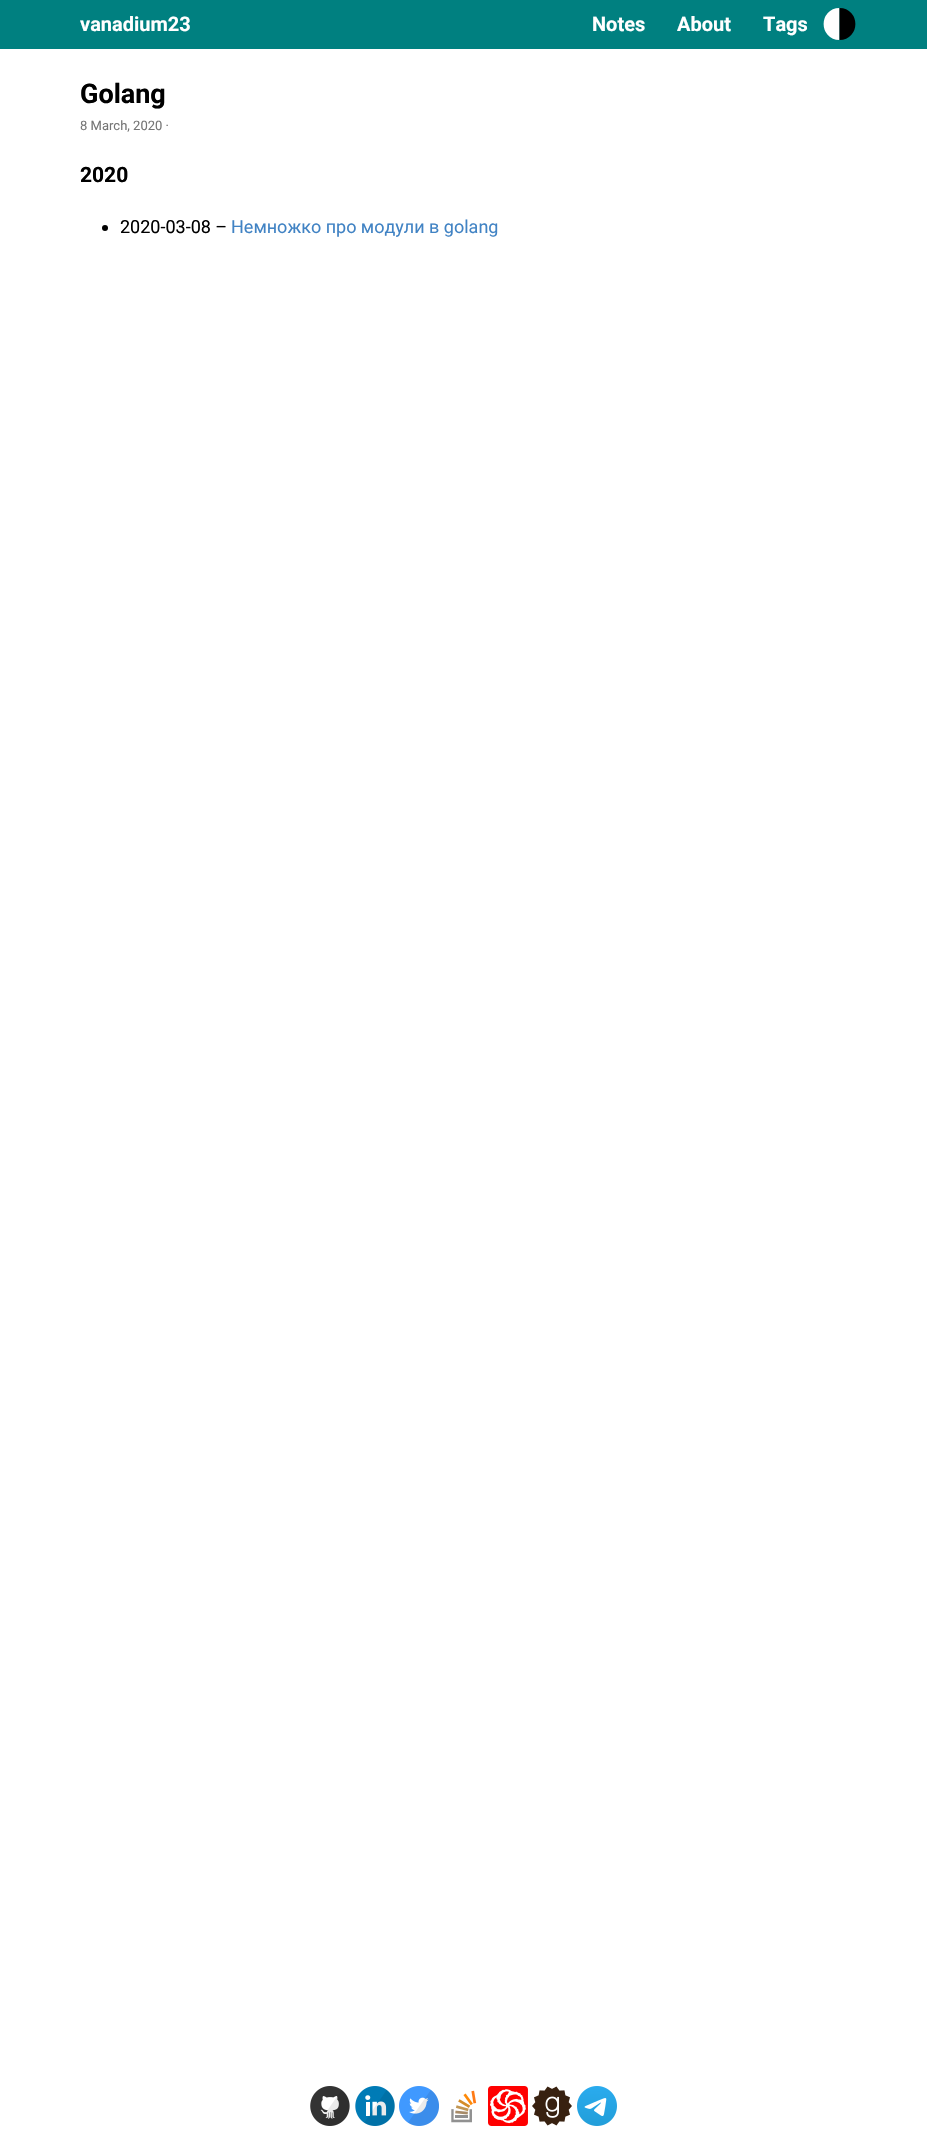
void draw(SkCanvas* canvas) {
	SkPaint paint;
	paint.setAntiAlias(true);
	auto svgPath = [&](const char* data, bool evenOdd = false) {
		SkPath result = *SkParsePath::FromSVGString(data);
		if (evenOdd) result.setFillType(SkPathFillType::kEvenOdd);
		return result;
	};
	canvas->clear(0xffffffff);
	paint.setColor(0xff008080);
	canvas->drawRect(SkRect::MakeXYWH(0, 0, 927, 49), paint);
	SkFont f1(fontMgr->matchFamilyStyle("Roboto", SkFontStyle::Bold()), 20);
	f1.setSubpixel(true);
	paint.setColor(0xffffffff);
	canvas->drawString("vanadium23", 80, 31, f1, paint);
	canvas->drawString("Notes", 592, 31, f1, paint);
	canvas->drawString("About", 677, 31, f1, paint);
	canvas->drawString("Tags", 763, 31, f1, paint);
	paint.setStroke(true);
	paint.setStrokeWidth(16);
	canvas->drawPath(svgPath("M839.5 32C829 32 829 16 839.5 16"), paint);
	paint.setColor(0xff000000);
	canvas->drawPath(svgPath("M839.5 16C850 16 850 32 839.5 32"), paint);
	SkFont f2(fontMgr->matchFamilyStyle("Roboto", SkFontStyle::Bold()), 27);
	f2.setSubpixel(true);
	paint.setStroke(false);
	canvas->drawString("Golang", 80, 103, f2, paint);
	SkFont f3(fontMgr->matchFamilyStyle("Roboto", SkFontStyle::Normal()), 13);
	f3.setSubpixel(true);
	paint.setColor(0xff757575);
	canvas->drawString("8 March, 2020 ·", 80, 130, f3, paint);
	SkFont f4(fontMgr->matchFamilyStyle("Roboto", SkFontStyle::Bold()), 21);
	f4.setSubpixel(true);
	paint.setColor(0xff000000);
	canvas->drawString("2020", 80, 182, f4, paint);
	canvas->drawCircle(105, 228, 3, paint);
	SkFont f5(fontMgr->matchFamilyStyle("Roboto", SkFontStyle::Normal()), 18);
	f5.setSubpixel(true);
	canvas->drawString("2020-03-08 –", 120, 233, f5, paint);
	paint.setColor(0xff4183c4);
	canvas->drawString("Немножко про модули в golang", 231, 233, f5, paint);
	canvas->drawImageRect(SkImages::DeferredFromEncodedData(SkData::MakeFromFileName("img1.png")), SkRect::MakeXYWH(310, 2086, 40, 40), SkSamplingOptions());
	canvas->drawImageRect(SkImages::DeferredFromEncodedData(SkData::MakeFromFileName("img2.png")), SkRect::MakeXYWH(355, 2086, 40, 40), SkSamplingOptions());
	canvas->drawImageRect(SkImages::DeferredFromEncodedData(SkData::MakeFromFileName("img3.png")), SkRect::MakeXYWH(399, 2086, 40, 40), SkSamplingOptions());
	canvas->drawImageRect(SkImages::DeferredFromEncodedData(SkData::MakeFromFileName("img4.png")), SkRect::MakeXYWH(451, 2090, 26, 33), SkSamplingOptions());
	canvas->drawImageRect(SkImages::DeferredFromEncodedData(SkData::MakeFromFileName("img5.png")), SkRect::MakeXYWH(488, 2086, 40, 40), SkSamplingOptions());
	canvas->drawImageRect(SkImages::DeferredFromEncodedData(SkData::MakeFromFileName("img6.png")), SkRect::MakeXYWH(532, 2086, 40, 40), SkSamplingOptions());
	canvas->drawImageRect(SkImages::DeferredFromEncodedData(SkData::MakeFromFileName("img7.png")), SkRect::MakeXYWH(577, 2086, 40, 40), SkSamplingOptions());
}
